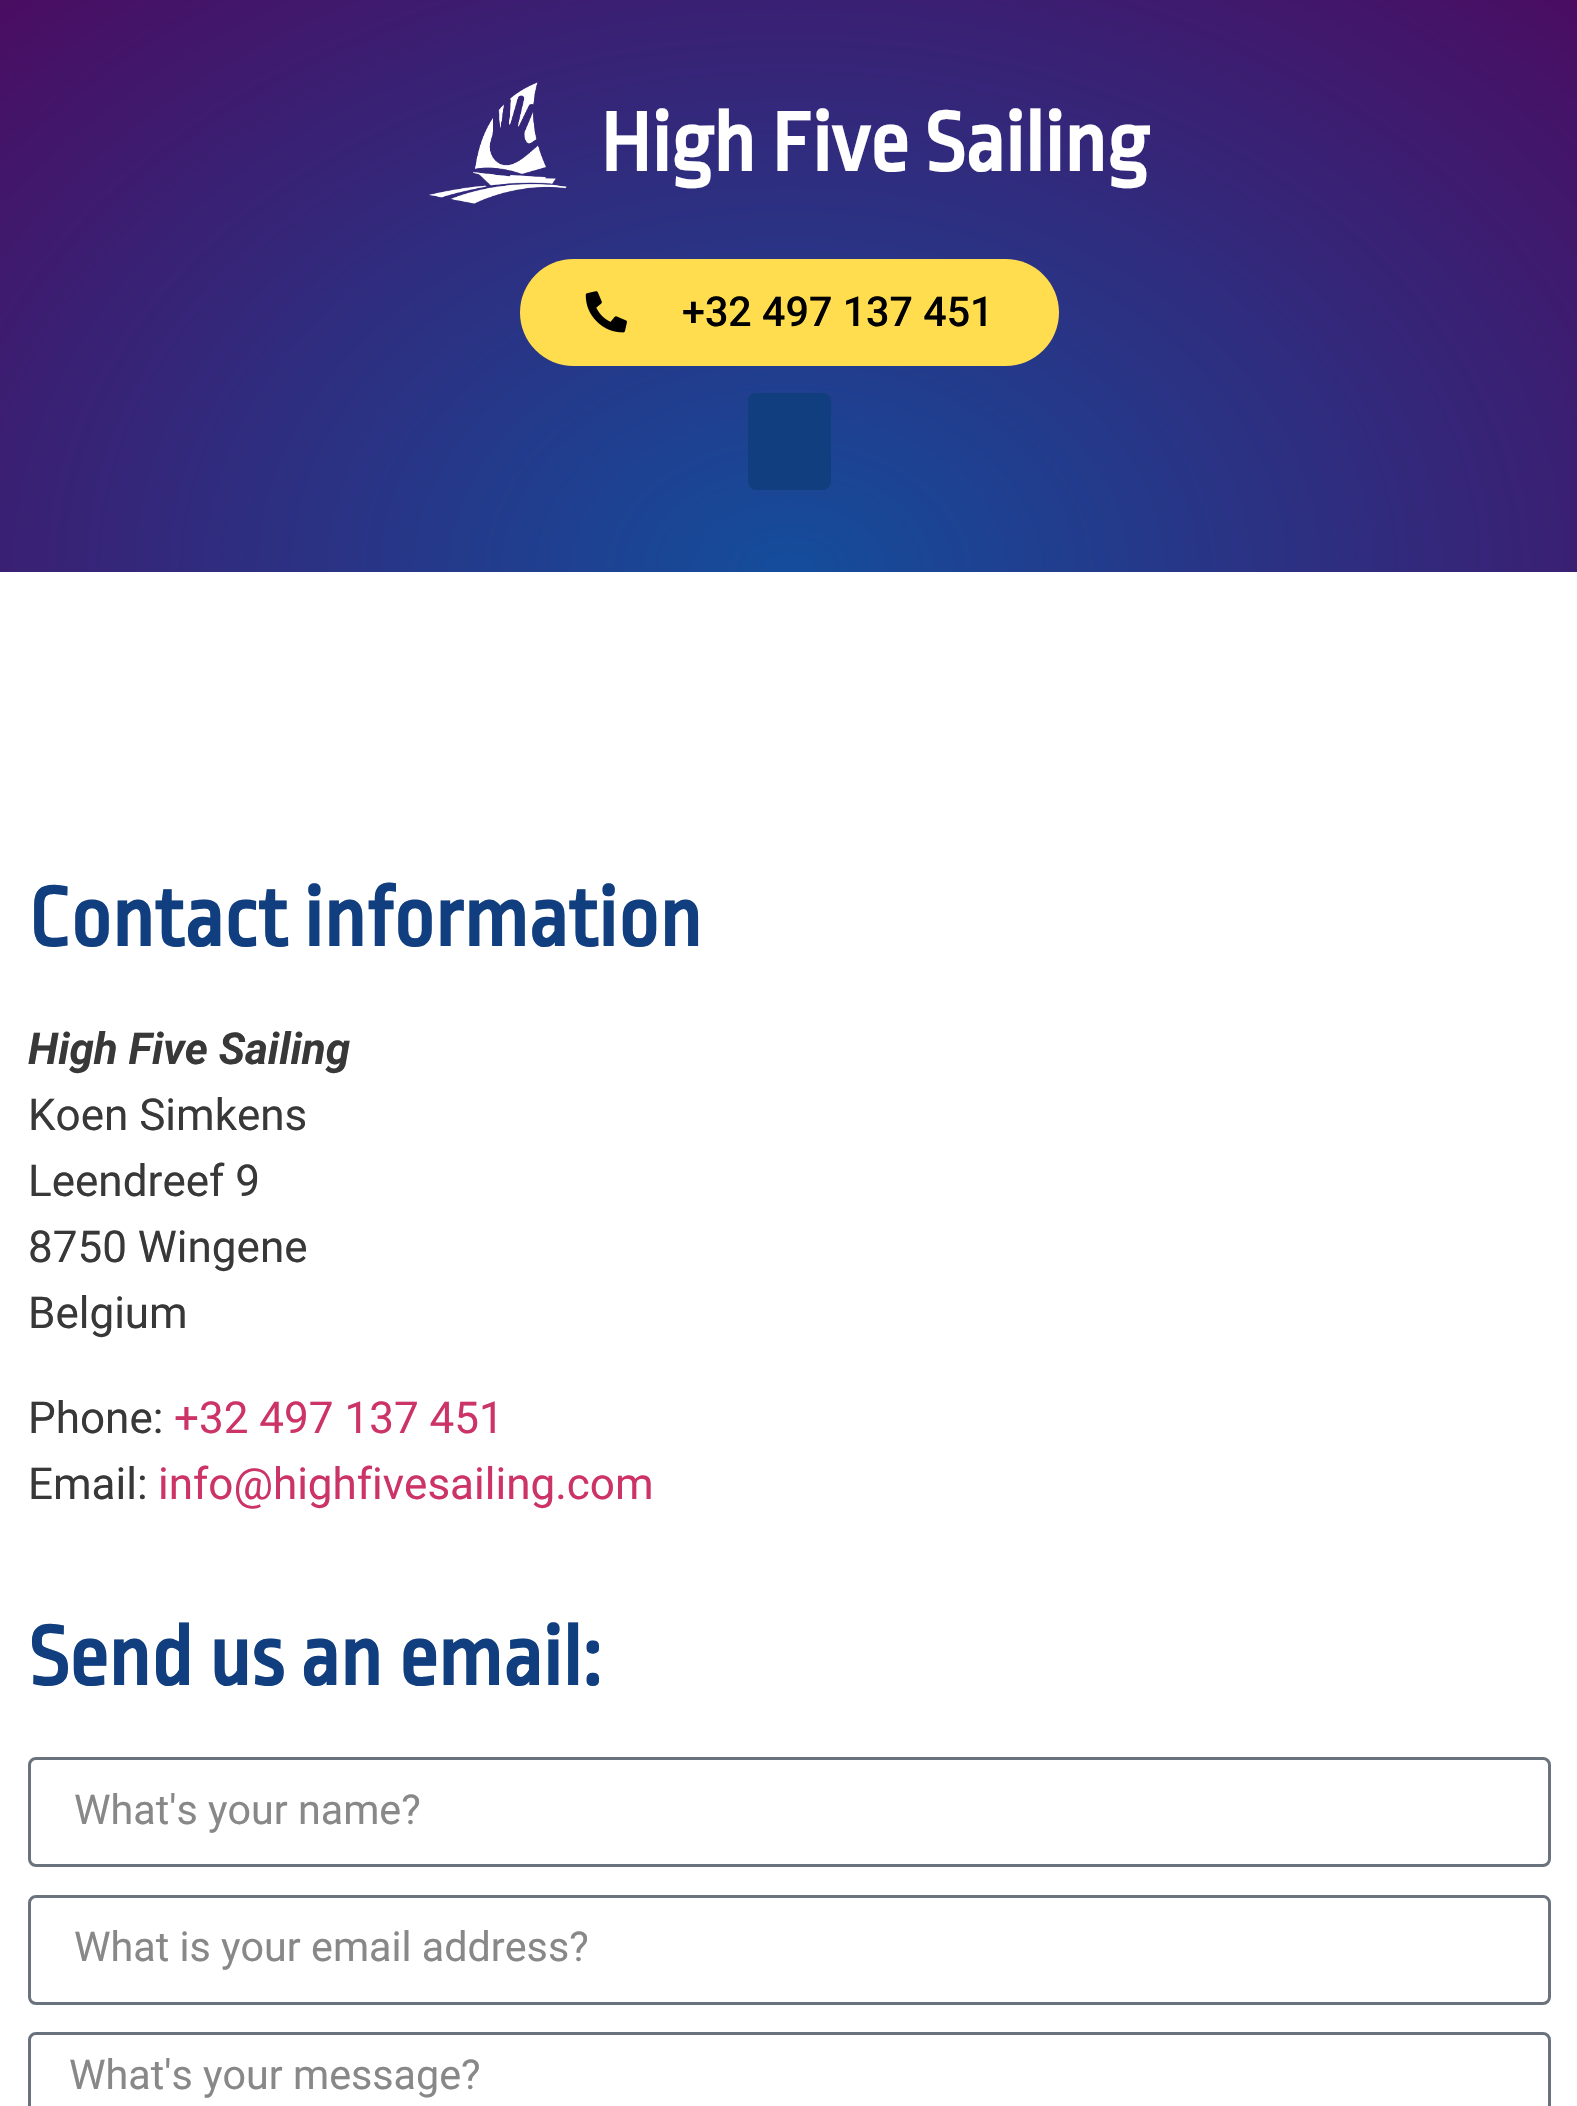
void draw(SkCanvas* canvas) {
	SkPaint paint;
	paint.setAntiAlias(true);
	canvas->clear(0xffffffff);
	{
		const SkColor colors[] = {0xff144d9c, 0xff4a0d62};
		const float stops[] = {0, 1};
		SkMatrix m = SkMatrix::Translate(789, 572).preScale(1116, 809);
		paint.setShader(SkGradientShader::MakeRadial({0, 0}, 1, colors, stops, 2, SkTileMode::kClamp, 0, &m));
		paint.setAlpha(255);
	}
	canvas->drawRect(SkRect::MakeXYWH(0, 0, 1577, 572), paint);
	canvas->drawImageRect(SkImages::DeferredFromEncodedData(SkData::MakeFromFileName("img1.png")), SkRect::MakeXYWH(429, 82, 138, 122), SkSamplingOptions());
	SkFont f1(fontMgr->matchFamilyStyle("Ropa Sans", SkFontStyle::Bold()), 88);
	f1.setSubpixel(true);
	paint.setShader(nullptr);
	paint.setColor(0xffffffff);
	canvas->drawString("High Five Sailing", 600, 171, f1, paint);
	paint.setColor(0xffffdd4e);
	canvas->drawRoundRect(SkRect::MakeXYWH(520, 259, 539, 107), 53.5, 53.5, paint);
	canvas->drawImageRect(SkImages::DeferredFromEncodedData(SkData::MakeFromFileName("img2.png")), SkRect::MakeXYWH(585, 291, 42, 42), SkSamplingOptions());
	SkFont f2(fontMgr->matchFamilyStyle("Roboto", SkFontStyle(500, SkFontStyle::kNormal_Width, SkFontStyle::kUpright_Slant)), 41.25);
	f2.setSubpixel(true);
	paint.setColor(0xff000000);
	canvas->drawString("+32 497 137 451", 682, 326, f2, paint);
	paint.setColor(0xff103e7e);
	canvas->drawRoundRect(SkRect::MakeXYWH(748, 393, 83, 97), 8, 8, paint);
	canvas->drawString("Contact information", 28, 946, f1, paint);
	SkFont f3(fontMgr->matchFamilyStyle("Roboto", SkFontStyle::BoldItalic()), 44);
	f3.setSubpixel(true);
	paint.setColor(0xff383838);
	canvas->drawString("High Five Sailing", 28, 1064, f3, paint);
	SkFont f4(fontMgr->matchFamilyStyle("Roboto", SkFontStyle::Normal()), 44);
	f4.setSubpixel(true);
	canvas->drawString("Koen Simkens", 28, 1130, f4, paint);
	canvas->drawString("Leendreef 9", 28, 1196, f4, paint);
	canvas->drawString("8750 Wingene", 28, 1262, f4, paint);
	canvas->drawString("Belgium", 28, 1328, f4, paint);
	canvas->drawString("Phone:", 28, 1433, f4, paint);
	paint.setColor(0xffcc3366);
	canvas->drawString("+32 497 137 451", 174, 1433, f4, paint);
	paint.setColor(0xff383838);
	canvas->drawString("Email:", 28, 1499, f4, paint);
	paint.setColor(0xffcc3366);
	canvas->drawString("info@highfivesailing.com", 158, 1499, f4, paint);
	paint.setColor(0xff103e7e);
	canvas->drawString("Send us an email:", 28, 1685, f1, paint);
	paint.setStroke(true);
	paint.setStrokeWidth(3);
	paint.setColor(0xff69727d);
	canvas->drawRoundRect(SkRect::MakeXYWH(29.5, 1758.5, 1520, 107), 6.5, 6.5, paint);
	SkFont f5(fontMgr->matchFamilyStyle("Roboto", SkFontStyle::Normal()), 41.25);
	f5.setSubpixel(true);
	paint.setStroke(false);
	paint.setColor(0xff888888);
	canvas->drawString("What's your name?", 74, 1824, f5, paint);
	paint.setStroke(true);
	paint.setColor(0xff69727d);
	canvas->drawRoundRect(SkRect::MakeXYWH(29.5, 1896.5, 1520, 107), 6.5, 6.5, paint);
	paint.setStroke(false);
	paint.setColor(0xff888888);
	canvas->drawString("What is your email address?", 74, 1961, f5, paint);
	paint.setStroke(true);
	paint.setColor(0xff69727d);
	canvas->drawRoundRect(SkRect::MakeXYWH(29.5, 2033.5, 1520, 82), 6.5, 6.5, paint);
	paint.setStroke(false);
	paint.setColor(0xff888888);
	canvas->drawString("What's your message?", 69, 2089, f5, paint);
}
